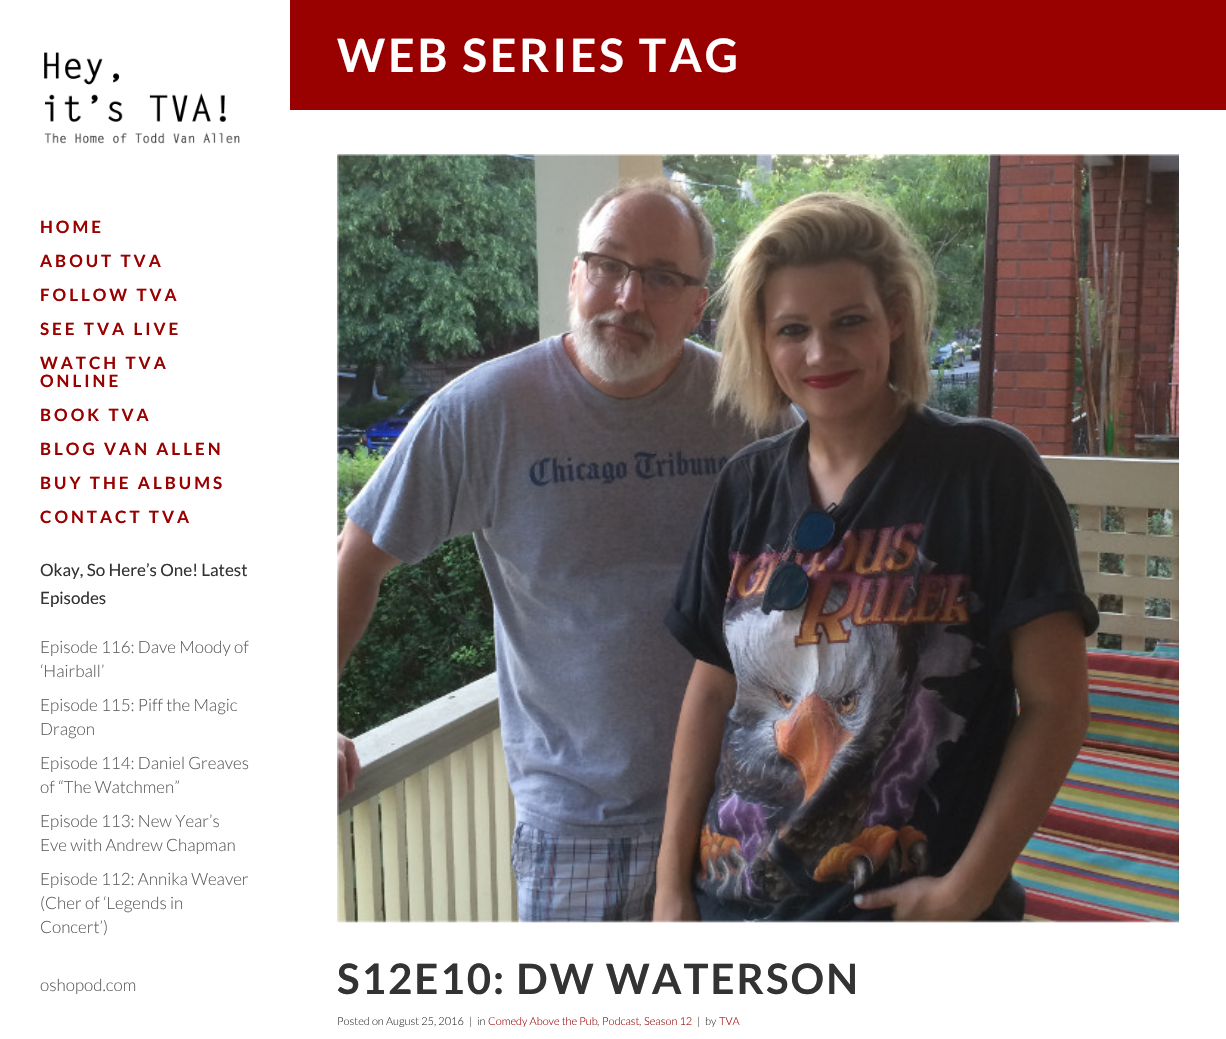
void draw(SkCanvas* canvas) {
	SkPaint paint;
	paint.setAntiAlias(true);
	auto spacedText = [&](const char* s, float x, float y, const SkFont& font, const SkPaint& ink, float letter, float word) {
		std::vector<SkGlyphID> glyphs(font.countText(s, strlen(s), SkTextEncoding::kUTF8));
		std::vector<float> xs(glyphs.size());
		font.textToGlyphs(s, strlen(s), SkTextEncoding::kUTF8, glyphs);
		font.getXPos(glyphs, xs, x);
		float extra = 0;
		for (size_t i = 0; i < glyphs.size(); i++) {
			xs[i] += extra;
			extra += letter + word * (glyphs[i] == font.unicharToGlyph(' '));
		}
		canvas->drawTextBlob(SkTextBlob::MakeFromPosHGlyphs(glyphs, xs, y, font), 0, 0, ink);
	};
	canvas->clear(0xffffffff);
	canvas->drawImageRect(SkImages::DeferredFromEncodedData(SkData::MakeFromFileName("img1.png")), SkRect::MakeXYWH(44, 52, 196, 92), SkSamplingOptions());
	SkFont f1(fontMgr->matchFamilyStyle("Lato", SkFontStyle::Bold()), 17);
	f1.setSubpixel(true);
	paint.setColor(0xff990000);
	spacedText("HOME", 40, 233, f1, paint, 3, 0);
	spacedText("ABOUT TVA", 40, 267, f1, paint, 3, 0);
	spacedText("FOLLOW TVA", 40, 301, f1, paint, 3, 0);
	spacedText("SEE TVA LIVE", 40, 335, f1, paint, 3, 0);
	spacedText("WATCH TVA", 40, 369, f1, paint, 3, 0);
	spacedText("ONLINE", 40, 387, f1, paint, 3, 0);
	spacedText("BOOK TVA", 40, 421, f1, paint, 3, 0);
	spacedText("BLOG VAN ALLEN", 40, 455, f1, paint, 3, 0);
	spacedText("BUY THE ALBUMS", 40, 489, f1, paint, 3, 0);
	spacedText("CONTACT TVA", 40, 523, f1, paint, 3, 0);
	SkFont f2(fontMgr->matchFamilyStyle("Lato", SkFontStyle::Normal()), 17);
	f2.setSubpixel(true);
	paint.setColor(0xff333333);
	canvas->drawString("Okay, So Here’s One! Latest", 40, 576, f2, paint);
	canvas->drawString("Episodes", 40, 604, f2, paint);
	SkFont f3(fontMgr->matchFamilyStyle("Lato", SkFontStyle(300, SkFontStyle::kNormal_Width, SkFontStyle::kUpright_Slant)), 17);
	f3.setSubpixel(true);
	paint.setColor(0xff5d5d5d);
	canvas->drawString("Episode 116: Dave Moody of", 40, 653, f3, paint);
	canvas->drawString("‘Hairball’", 40, 677, f3, paint);
	canvas->drawString("Episode 115: Piff the Magic", 40, 711, f3, paint);
	canvas->drawString("Dragon", 40, 735, f3, paint);
	canvas->drawString("Episode 114: Daniel Greaves", 40, 769, f3, paint);
	canvas->drawString("of “The Watchmen”", 40, 793, f3, paint);
	canvas->drawString("Episode 113: New Year’s", 40, 827, f3, paint);
	canvas->drawString("Eve with Andrew Chapman", 40, 851, f3, paint);
	canvas->drawString("Episode 112: Annika Weaver", 40, 885, f3, paint);
	canvas->drawString("(Cher of ‘Legends in", 40, 909, f3, paint);
	canvas->drawString("Concert’)", 40, 933, f3, paint);
	canvas->drawString("oshopod.com", 40, 991, f3, paint);
	paint.setColor(0xff990000);
	canvas->drawRect(SkRect::MakeXYWH(290, 0, 936, 110), paint);
	SkFont f4(fontMgr->matchFamilyStyle("Lato", SkFontStyle::Bold()), 46);
	f4.setSubpixel(true);
	paint.setColor(0xffffffff);
	spacedText("WEB SERIES TAG", 337, 72, f4, paint, 3, 0);
	canvas->drawImageRect(SkImages::DeferredFromEncodedData(SkData::MakeFromFileName("img2.png")), SkRect::MakeXYWH(337, 154, 842, 769), SkSamplingOptions());
	SkFont f5(fontMgr->matchFamilyStyle("Lato", SkFontStyle::Bold()), 42);
	f5.setSubpixel(true);
	paint.setColor(0xff333333);
	spacedText("S12E10: DW WATERSON", 337, 994, f5, paint, 2, 0);
	SkFont f6(fontMgr->matchFamilyStyle("Lato", SkFontStyle(300, SkFontStyle::kNormal_Width, SkFontStyle::kUpright_Slant)), 11);
	f6.setSubpixel(true);
	canvas->drawString("Posted on August 25, 2016", 337, 1025, f6, paint);
	canvas->drawString("|", 469, 1025, f6, paint);
	canvas->drawString("in", 477, 1025, f6, paint);
	paint.setColor(0xff990000);
	canvas->drawString("Comedy Above the Pub", 488, 1025, f6, paint);
	paint.setColor(0xff333333);
	canvas->drawString(",", 597, 1025, f6, paint);
	paint.setColor(0xff990000);
	canvas->drawString("Podcast", 602, 1025, f6, paint);
	paint.setColor(0xff333333);
	canvas->drawString(",", 639, 1025, f6, paint);
	paint.setColor(0xff990000);
	canvas->drawString("Season 12", 644, 1025, f6, paint);
	paint.setColor(0xff333333);
	canvas->drawString("|", 697, 1025, f6, paint);
	canvas->drawString("by", 705, 1025, f6, paint);
	paint.setColor(0xff990000);
	canvas->drawString("TVA", 719, 1025, f6, paint);
}
